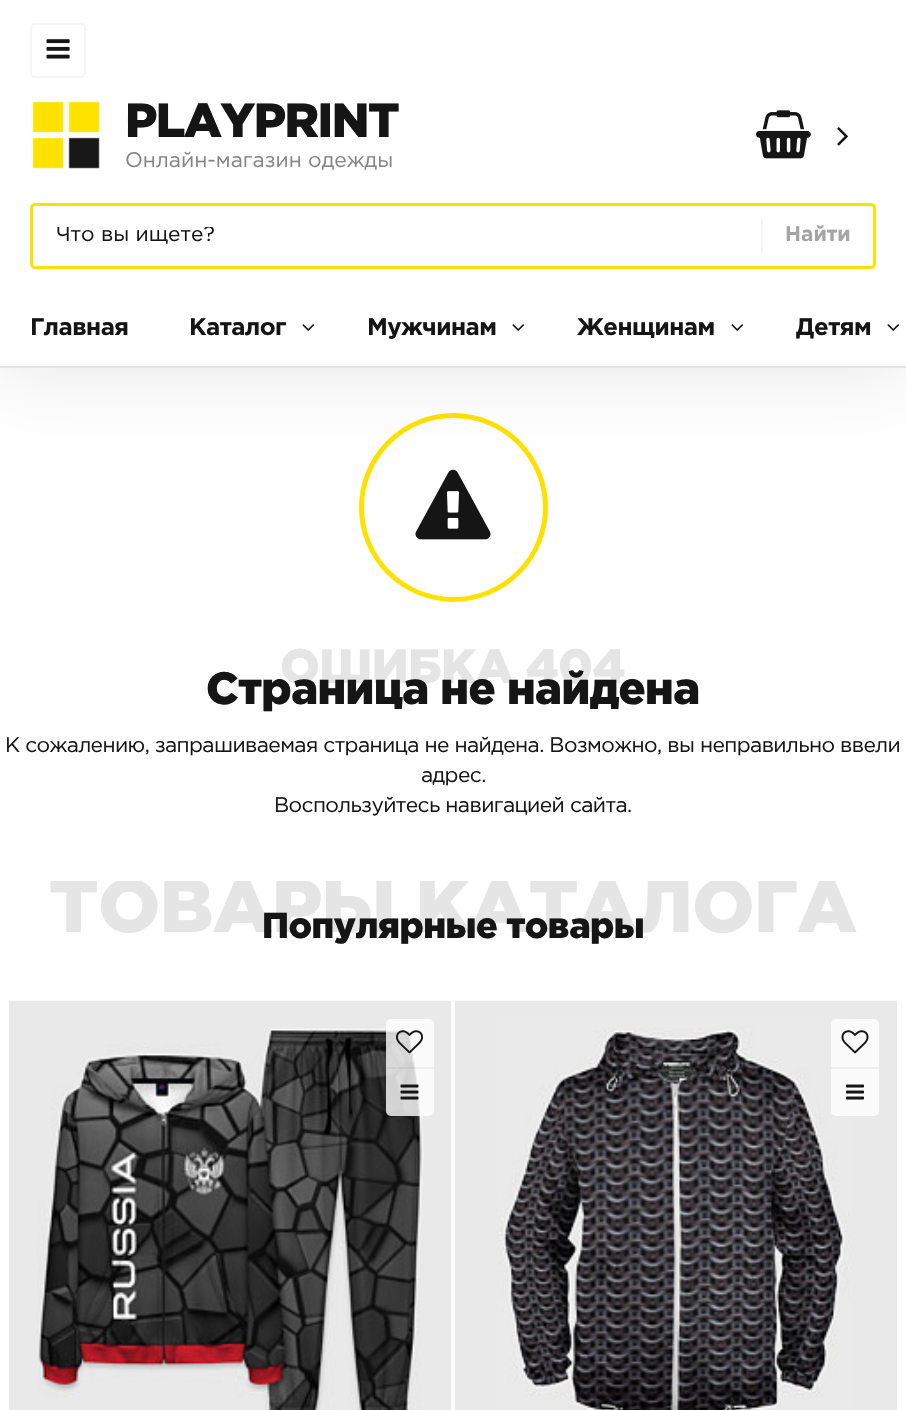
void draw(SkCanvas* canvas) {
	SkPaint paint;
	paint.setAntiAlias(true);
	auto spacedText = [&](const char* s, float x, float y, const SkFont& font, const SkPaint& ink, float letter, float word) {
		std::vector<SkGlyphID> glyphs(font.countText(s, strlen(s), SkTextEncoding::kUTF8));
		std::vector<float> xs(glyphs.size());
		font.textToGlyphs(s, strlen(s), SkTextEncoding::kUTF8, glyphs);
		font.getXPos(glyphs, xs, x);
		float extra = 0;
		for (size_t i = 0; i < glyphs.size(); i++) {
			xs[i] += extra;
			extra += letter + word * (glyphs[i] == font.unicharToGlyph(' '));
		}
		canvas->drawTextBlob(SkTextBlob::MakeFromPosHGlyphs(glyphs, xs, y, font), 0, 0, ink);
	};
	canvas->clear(0xffffffff);
	paint.setStroke(true);
	paint.setStrokeWidth(5);
	paint.setColor(0xffffe100);
	canvas->drawCircle(453.5, 507.5, 92, paint);
	canvas->drawImageRect(SkImages::DeferredFromEncodedData(SkData::MakeFromFileName("img6.png")), SkRect::MakeXYWH(415, 469, 76, 71), SkSamplingOptions());
	paint.setStroke(false);
	paint.setColor(0x1a000000);
	paint.setMaskFilter(SkMaskFilter::MakeBlur(kNormal_SkBlurStyle, 37.5));
	canvas->drawRect(SkRect::MakeXYWH(0, 0, 906, 368), paint);
	paint.setMaskFilter(nullptr);
	paint.setColor(0xffffffff);
	canvas->drawRect(SkRect::MakeXYWH(0, 0, 906, 366), paint);
	paint.setColor(0xffe5e5e5);
	canvas->drawRect(SkRect::MakeXYWH(0, 366, 906, 2), paint);
	paint.setStroke(true);
	paint.setStrokeWidth(2);
	paint.setColor(0xfff5f5f5);
	canvas->drawRoundRect(SkRect::MakeXYWH(31, 24, 54, 53), 4, 4, paint);
	canvas->drawImageRect(SkImages::DeferredFromEncodedData(SkData::MakeFromFileName("img1.png")), SkRect::MakeXYWH(46, 39, 24, 20), SkSamplingOptions());
	canvas->drawImageRect(SkImages::DeferredFromEncodedData(SkData::MakeFromFileName("img2.png")), SkRect::MakeXYWH(32, 101, 68, 68), SkSamplingOptions());
	SkFont f1(fontMgr->matchFamilyStyle("Gotham", SkFontStyle(900, SkFontStyle::kNormal_Width, SkFontStyle::kUpright_Slant)), 48);
	f1.setSubpixel(true);
	paint.setStroke(false);
	paint.setColor(0xff151515);
	spacedText("PLAYPRINT", 125, 137, f1, paint, -1.5, 0);
	SkFont f2(fontMgr->matchFamilyStyle("Gotham", SkFontStyle::Normal()), 21);
	f2.setSubpixel(true);
	paint.setColor(0xff858585);
	canvas->drawString("Онлайн-магазин одежды", 125, 167, f2, paint);
	canvas->drawImageRect(SkImages::DeferredFromEncodedData(SkData::MakeFromFileName("img3.png")), SkRect::MakeXYWH(756, 110, 55, 49), SkSamplingOptions());
	canvas->drawImageRect(SkImages::DeferredFromEncodedData(SkData::MakeFromFileName("img4.png")), SkRect::MakeXYWH(837, 127, 11, 19), SkSamplingOptions());
	paint.setStroke(true);
	paint.setStrokeWidth(3);
	paint.setColor(0xffffe100);
	canvas->drawRoundRect(SkRect::MakeXYWH(31.5, 204.5, 843, 63), 3.5, 3.5, paint);
	canvas->save();
	canvas->clipRect(SkRect::MakeXYWH(56, 227, 795, 19));
	paint.setStroke(false);
	paint.setColor(0xff151515);
	canvas->drawString("Что вы ищете?", 56, 241, f2, paint);
	canvas->restore();
	paint.setColor(0xfff5f5f5);
	canvas->drawRect(SkRect::MakeXYWH(761, 218, 2, 36), paint);
	SkFont f3(fontMgr->matchFamilyStyle("Gotham", SkFontStyle::Bold()), 21);
	f3.setSubpixel(true);
	paint.setColor(0xffa5a5a5);
	canvas->drawString("Найти", 785, 241, f3, paint);
	SkFont f4(fontMgr->matchFamilyStyle("Gotham", SkFontStyle::Bold()), 24);
	f4.setSubpixel(true);
	paint.setColor(0xff151515);
	spacedText("Главная", 30, 335, f4, paint, -0.5, 0);
	spacedText("Каталог", 189, 335, f4, paint, -0.5, 0);
	canvas->drawImageRect(SkImages::DeferredFromEncodedData(SkData::MakeFromFileName("img5.png")), SkRect::MakeXYWH(302, 324, 12, 7), SkSamplingOptions());
	spacedText("Мужчинам", 367, 335, f4, paint, -0.5, 0);
	canvas->drawImageRect(SkImages::DeferredFromEncodedData(SkData::MakeFromFileName("img5.png")), SkRect::MakeXYWH(512, 324, 12, 7), SkSamplingOptions());
	spacedText("Женщинам", 577, 335, f4, paint, -0.5, 0);
	canvas->drawImageRect(SkImages::DeferredFromEncodedData(SkData::MakeFromFileName("img5.png")), SkRect::MakeXYWH(731, 324, 12, 7), SkSamplingOptions());
	spacedText("Детям", 796, 335, f4, paint, -0.5, 0);
	canvas->drawImageRect(SkImages::DeferredFromEncodedData(SkData::MakeFromFileName("img5.png")), SkRect::MakeXYWH(887, 324, 12, 7), SkSamplingOptions());
	paint.setColor(0xffe5e5e5);
	spacedText("ОШИБКА 404", 280, 683, f1, paint, -0.6, 0);
	SkFont f5(fontMgr->matchFamilyStyle("Gotham", SkFontStyle(900, SkFontStyle::kNormal_Width, SkFontStyle::kUpright_Slant)), 45);
	f5.setSubpixel(true);
	paint.setColor(0xff151515);
	spacedText("Страница не найдена", 206, 704, f5, paint, -0.6, 0);
	spacedText("К сожалению, запрашиваемая страница не найдена. Возможно, вы неправильно ввели", 5, 752, f2, paint, -0.6, 0);
	spacedText("адрес.", 421, 782, f2, paint, -0.6, 0);
	spacedText("Воспользуйтесь навигацией сайта.", 274, 812, f2, paint, -0.6, 0);
	canvas->save();
	canvas->clipRect(SkRect::MakeXYWH(0, 881, 906, 66));
	SkFont f6(fontMgr->matchFamilyStyle("Gotham", SkFontStyle(900, SkFontStyle::kNormal_Width, SkFontStyle::kUpright_Slant)), 75);
	f6.setSubpixel(true);
	paint.setColor(0xffe5e5e5);
	spacedText("ТОВАРЫ КАТАЛОГА", 49, 932, f6, paint, -0.6, 0);
	canvas->restore();
	SkFont f7(fontMgr->matchFamilyStyle("Gotham", SkFontStyle(900, SkFontStyle::kNormal_Width, SkFontStyle::kUpright_Slant)), 36);
	f7.setSubpixel(true);
	paint.setColor(0xff151515);
	spacedText("Популярные товары", 262, 938, f7, paint, -0.6, 0);
	canvas->drawImageRect(SkImages::DeferredFromEncodedData(SkData::MakeFromFileName("img7.png")), SkRect::MakeXYWH(9, 1000, 443, 410), SkSamplingOptions());
	canvas->drawImageRect(SkImages::DeferredFromEncodedData(SkData::MakeFromFileName("img8.png")), SkRect::MakeXYWH(37, 1001, 387, 409), SkSamplingOptions());
	paint.setColor(0xccffffff);
	canvas->drawRoundRect(SkRect::MakeXYWH(386, 1019, 48, 97), 5, 5, paint);
	canvas->drawImageRect(SkImages::DeferredFromEncodedData(SkData::MakeFromFileName("img9.png")), SkRect::MakeXYWH(396, 1030, 27, 24), SkSamplingOptions());
	paint.setColor(0x0d000000);
	canvas->drawRect(SkRect::MakeXYWH(386, 1067, 48, 2), paint);
	canvas->drawImageRect(SkImages::DeferredFromEncodedData(SkData::MakeFromFileName("img10.png")), SkRect::MakeXYWH(400, 1084, 19, 16), SkSamplingOptions());
	canvas->drawImageRect(SkImages::DeferredFromEncodedData(SkData::MakeFromFileName("img11.png")), SkRect::MakeXYWH(454, 1000, 443, 410), SkSamplingOptions());
	canvas->drawImageRect(SkImages::DeferredFromEncodedData(SkData::MakeFromFileName("img12.png")), SkRect::MakeXYWH(497, 1015, 354, 395), SkSamplingOptions());
	paint.setColor(0xfffbfbfb);
	canvas->drawRoundRect(SkRect::MakeXYWH(831, 1019, 48, 97), 5, 5, paint);
	canvas->drawImageRect(SkImages::DeferredFromEncodedData(SkData::MakeFromFileName("img13.png")), SkRect::MakeXYWH(841, 1030, 28, 24), SkSamplingOptions());
	paint.setColor(0xffeeeeee);
	canvas->drawRect(SkRect::MakeXYWH(831, 1067, 48, 2), paint);
	canvas->drawImageRect(SkImages::DeferredFromEncodedData(SkData::MakeFromFileName("img14.png")), SkRect::MakeXYWH(846, 1084, 18, 16), SkSamplingOptions());
}
